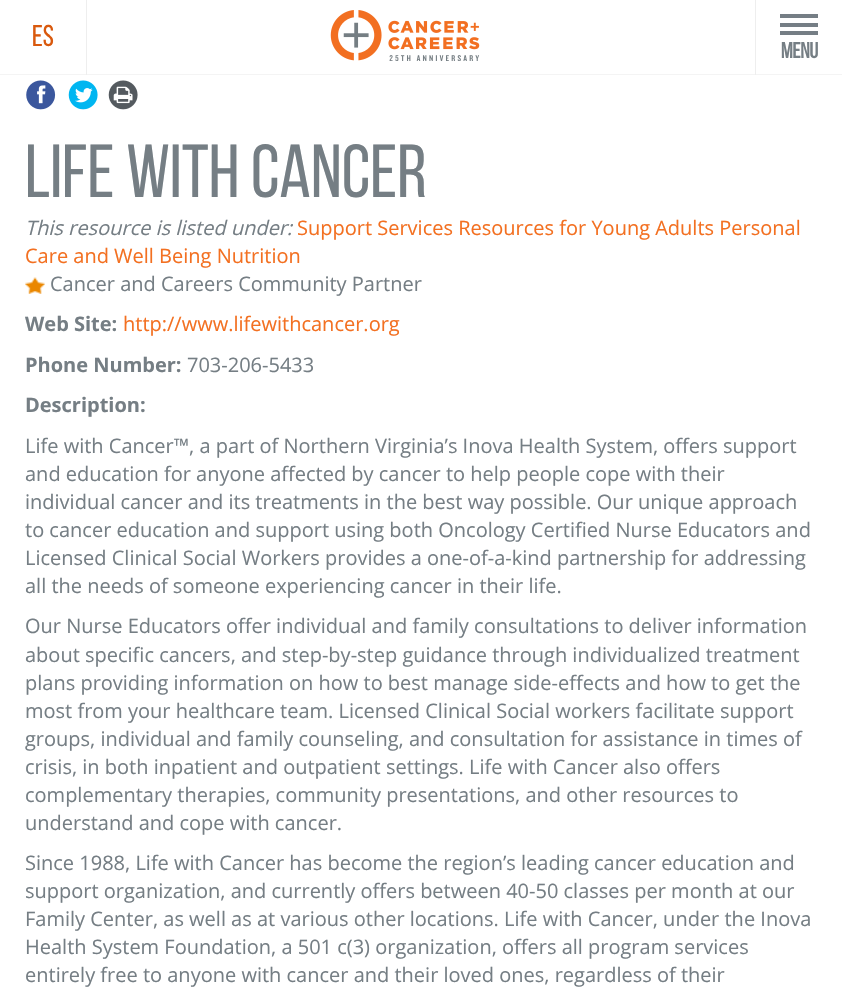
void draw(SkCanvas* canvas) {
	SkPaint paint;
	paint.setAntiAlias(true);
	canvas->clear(0xffffffff);
	paint.setColor(0xfff4f4f4);
	canvas->drawRect(SkRect::MakeXYWH(0, 74, 842, 1), paint);
	paint.setColor(0xffeeeeee);
	canvas->drawRect(SkRect::MakeXYWH(86, 0, 1, 75), paint);
	SkFont f1(fontMgr->matchFamilyStyle("Bebas Neue", SkFontStyle::Normal()), 30);
	f1.setSubpixel(true);
	paint.setColor(0xffd9590d);
	canvas->drawString("ES", 32, 46, f1, paint);
	canvas->drawImageRect(SkImages::DeferredFromEncodedData(SkData::MakeFromFileName("img1.png")), SkRect::MakeXYWH(330, 10, 150, 51), SkSamplingOptions());
	paint.setColor(0xffeeeeee);
	canvas->drawRect(SkRect::MakeXYWH(755, 0, 1, 75), paint);
	paint.setColor(0xff757e85);
	canvas->drawRect(SkRect::MakeXYWH(780, 14, 38, 4), paint);
	canvas->drawRect(SkRect::MakeXYWH(780, 23, 38, 4), paint);
	canvas->drawRect(SkRect::MakeXYWH(780, 31, 38, 4), paint);
	SkFont f2(fontMgr->matchFamilyStyle("Bebas Neue", SkFontStyle::Bold()), 22);
	f2.setSubpixel(true);
	paint.setColor(0xff757e84);
	canvas->drawString("Menu", 781, 58, f2, paint);
	canvas->drawImageRect(SkImages::DeferredFromEncodedData(SkData::MakeFromFileName("img2.png")), SkRect::MakeXYWH(26, 80, 30, 30), SkSamplingOptions());
	canvas->drawImageRect(SkImages::DeferredFromEncodedData(SkData::MakeFromFileName("img3.png")), SkRect::MakeXYWH(68, 80, 30, 30), SkSamplingOptions());
	canvas->drawImageRect(SkImages::DeferredFromEncodedData(SkData::MakeFromFileName("img4.png")), SkRect::MakeXYWH(108, 80, 30, 30), SkSamplingOptions());
	SkFont f3(fontMgr->matchFamilyStyle("Bebas Neue", SkFontStyle::Normal()), 75);
	f3.setSubpixel(true);
	canvas->drawString("Life with Cancer", 25, 197, f3, paint);
	SkFont f4(fontMgr->matchFamilyStyle("Open Sans", SkFontStyle::Italic()), 20);
	f4.setSubpixel(true);
	canvas->drawString("This resource is listed under:", 25, 235, f4, paint);
	SkFont f5(fontMgr->matchFamilyStyle("Open Sans", SkFontStyle::Normal()), 20);
	f5.setSubpixel(true);
	paint.setColor(0xfff37021);
	canvas->drawString("Support Services Resources for Young Adults Personal", 297, 235, f5, paint);
	canvas->drawString("Care and Well Being Nutrition", 25, 263, f5, paint);
	canvas->drawImageRect(SkImages::DeferredFromEncodedData(SkData::MakeFromFileName("img5.png")), SkRect::MakeXYWH(25, 277, 20, 17), SkSamplingOptions());
	paint.setColor(0xff757e84);
	canvas->drawString("Cancer and Careers Community Partner", 50, 291, f5, paint);
	SkFont f6(fontMgr->matchFamilyStyle("Open Sans", SkFontStyle::Bold()), 20);
	f6.setSubpixel(true);
	canvas->drawString("Web Site:", 25, 331, f6, paint);
	paint.setColor(0xfff37021);
	canvas->drawString("http://www.lifewithcancer.org", 123, 331, f5, paint);
	paint.setColor(0xff757e84);
	canvas->drawString("Phone Number:", 25, 372, f6, paint);
	canvas->drawString("703-206-5433", 187, 372, f5, paint);
	canvas->drawString("Description:", 25, 412, f6, paint);
	canvas->drawString("Life with Cancer™, a part of Northern Virginia’s Inova Health System, offers support", 25, 453, f5, paint);
	canvas->drawString("and education for anyone affected by cancer to help people cope with their", 25, 481, f5, paint);
	canvas->drawString("individual cancer and its treatments in the best way possible. Our unique approach", 25, 509, f5, paint);
	canvas->drawString("to cancer education and support using both Oncology Certified Nurse Educators and", 25, 537, f5, paint);
	canvas->drawString("Licensed Clinical Social Workers provides a one-of-a-kind partnership for addressing", 25, 565, f5, paint);
	canvas->drawString("all the needs of someone experiencing cancer in their life.", 25, 593, f5, paint);
	canvas->drawString("Our Nurse Educators offer individual and family consultations to deliver information", 25, 633, f5, paint);
	canvas->drawString("about specific cancers, and step-by-step guidance through individualized treatment", 25, 662, f5, paint);
	canvas->drawString("plans providing information on how to best manage side-effects and how to get the", 25, 690, f5, paint);
	canvas->drawString("most from your healthcare team. Licensed Clinical Social workers facilitate support", 25, 718, f5, paint);
	canvas->drawString("groups, individual and family counseling, and consultation for assistance in times of", 25, 746, f5, paint);
	canvas->drawString("crisis, in both inpatient and outpatient settings. Life with Cancer also offers", 25, 774, f5, paint);
	canvas->drawString("complementary therapies, community presentations, and other resources to", 25, 802, f5, paint);
	canvas->drawString("understand and cope with cancer.", 25, 830, f5, paint);
	canvas->drawString("Since 1988, Life with Cancer has become the region’s leading cancer education and", 25, 870, f5, paint);
	canvas->drawString("support organization, and currently offers between 40-50 classes per month at our", 25, 898, f5, paint);
	canvas->drawString("Family Center, as well as at various other locations. Life with Cancer, under the Inova", 25, 926, f5, paint);
	canvas->drawString("Health System Foundation, a 501 c(3) organization, offers all program services", 25, 954, f5, paint);
	canvas->drawString("entirely free to anyone with cancer and their loved ones, regardless of their", 25, 982, f5, paint);
}
